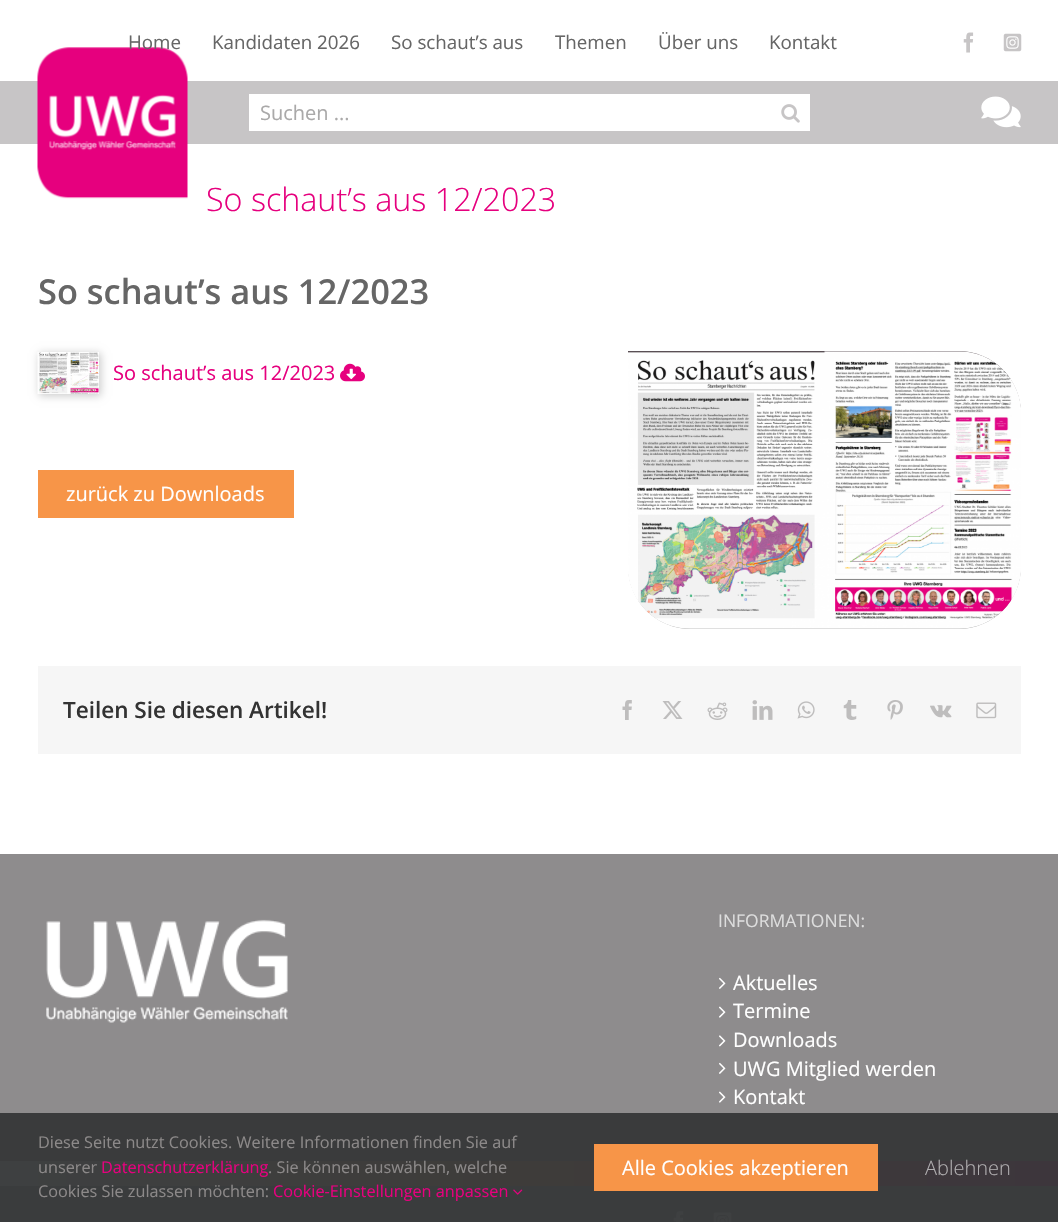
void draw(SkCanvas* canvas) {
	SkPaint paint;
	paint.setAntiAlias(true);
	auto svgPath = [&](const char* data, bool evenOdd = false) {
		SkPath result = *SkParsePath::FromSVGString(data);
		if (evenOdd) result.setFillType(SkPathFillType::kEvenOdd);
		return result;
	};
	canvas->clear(0xffffffff);
	paint.setColor(0xffc7c5c6);
	canvas->drawRect(SkRect::MakeXYWH(0, 81, 1058, 63), paint);
	canvas->drawImageRect(SkImages::DeferredFromEncodedData(SkData::MakeFromFileName("img1.png")), SkRect::MakeXYWH(37, 47, 151, 152), SkSamplingOptions());
	SkFont f1(fontMgr->matchFamilyStyle("Open Sans", SkFontStyle::Normal()), 18.75);
	f1.setSubpixel(true);
	paint.setColor(0xff666666);
	canvas->drawString("Home", 128, 49, f1, paint);
	canvas->drawString("Kandidaten 2026", 212, 49, f1, paint);
	canvas->drawString("So schaut’s aus", 391, 49, f1, paint);
	canvas->drawString("Themen", 555, 49, f1, paint);
	canvas->drawString("Über uns", 658, 49, f1, paint);
	canvas->drawString("Kontakt", 769, 49, f1, paint);
	canvas->drawImageRect(SkImages::DeferredFromEncodedData(SkData::MakeFromFileName("img2.png")), SkRect::MakeXYWH(963, 32, 11, 21), SkSamplingOptions());
	canvas->drawImageRect(SkImages::DeferredFromEncodedData(SkData::MakeFromFileName("img3.png")), SkRect::MakeXYWH(1003, 33, 19, 19), SkSamplingOptions());
	paint.setColor(0xffffffff);
	canvas->drawRect(SkRect::MakeXYWH(249, 94, 561, 37), paint);
	SkFont f2(fontMgr->matchFamilyStyle("Open Sans", SkFontStyle::Normal()), 20);
	f2.setSubpixel(true);
	paint.setColor(0xffaaa9a9);
	canvas->drawString("Suchen ...", 260, 120, f2, paint);
	canvas->drawImageRect(SkImages::DeferredFromEncodedData(SkData::MakeFromFileName("img4.png")), SkRect::MakeXYWH(781, 104, 19, 19), SkSamplingOptions());
	canvas->drawImageRect(SkImages::DeferredFromEncodedData(SkData::MakeFromFileName("img5.png")), SkRect::MakeXYWH(981, 96, 40, 32), SkSamplingOptions());
	SkFont f3(fontMgr->matchFamilyStyle("Open Sans", SkFontStyle(300, SkFontStyle::kNormal_Width, SkFontStyle::kUpright_Slant)), 32.25);
	f3.setSubpixel(true);
	paint.setColor(0xffe6007e);
	canvas->drawString("So schaut’s aus 12/2023", 206, 211, f3, paint);
	SkFont f4(fontMgr->matchFamilyStyle("Open Sans", SkFontStyle(600, SkFontStyle::kNormal_Width, SkFontStyle::kUpright_Slant)), 34.4);
	f4.setSubpixel(true);
	paint.setColor(0xff666666);
	canvas->drawString("So schaut’s aus 12/2023", 38, 304, f4, paint);
	paint.setColor(0xffcccccc);
	paint.setMaskFilter(SkMaskFilter::MakeBlur(kNormal_SkBlurStyle, 4));
	canvas->drawRect(SkRect::MakeXYWH(39, 353, 62, 43), paint);
	paint.setMaskFilter(nullptr);
	canvas->drawImageRect(SkImages::DeferredFromEncodedData(SkData::MakeFromFileName("img6.png")), SkRect::MakeXYWH(37, 352, 62, 42), SkSamplingOptions());
	paint.setColor(0xffe6007e);
	canvas->drawString("So schaut’s aus 12/2023", 113, 380, f2, paint);
	canvas->drawImageRect(SkImages::DeferredFromEncodedData(SkData::MakeFromFileName("img7.png")), SkRect::MakeXYWH(340, 363, 25, 19), SkSamplingOptions());
	{
		const SkColor colors[] = {0xff989898, 0xff574c52};
		const float stops[] = {0, 1};
		const SkPoint ends[] = {{824, 629}, {824, 351}};
		paint.setShader(SkGradientShader::MakeLinear(ends, colors, stops, 2, SkTileMode::kClamp));
		paint.setAlpha(255);
	}
	canvas->drawPath(svgPath("M628 351H958C993 351 1021 379 1021 414V566C1021 601 993 629 958 629H691C656 629 628 601 628 566Z"), paint);
	canvas->drawImageRect(SkImages::DeferredFromEncodedData(SkData::MakeFromFileName("img8.png")), SkRect::MakeXYWH(628, 351, 393, 278), SkSamplingOptions());
	paint.setShader(nullptr);
	paint.setColor(0xfff79548);
	canvas->drawRect(SkRect::MakeXYWH(38, 470, 256, 48), paint);
	paint.setColor(0xffffffff);
	canvas->drawString("zurück zu Downloads", 66, 501, f2, paint);
	paint.setColor(0xfff6f6f6);
	canvas->drawRect(SkRect::MakeXYWH(38, 666, 983, 88), paint);
	SkFont f5(fontMgr->matchFamilyStyle("Open Sans", SkFontStyle(600, SkFontStyle::kNormal_Width, SkFontStyle::kUpright_Slant)), 22.5);
	f5.setSubpixel(true);
	paint.setColor(0xff333333);
	canvas->drawString("Teilen Sie diesen Artikel!", 63, 718, f5, paint);
	canvas->drawImageRect(SkImages::DeferredFromEncodedData(SkData::MakeFromFileName("img9.png")), SkRect::MakeXYWH(622, 700, 10, 20), SkSamplingOptions());
	canvas->drawImageRect(SkImages::DeferredFromEncodedData(SkData::MakeFromFileName("img10.png")), SkRect::MakeXYWH(662, 701, 21, 18), SkSamplingOptions());
	canvas->drawImageRect(SkImages::DeferredFromEncodedData(SkData::MakeFromFileName("img11.png")), SkRect::MakeXYWH(707, 702, 21, 18), SkSamplingOptions());
	canvas->drawImageRect(SkImages::DeferredFromEncodedData(SkData::MakeFromFileName("img12.png")), SkRect::MakeXYWH(752, 700, 21, 20), SkSamplingOptions());
	canvas->drawImageRect(SkImages::DeferredFromEncodedData(SkData::MakeFromFileName("img13.png")), SkRect::MakeXYWH(797, 701, 18, 18), SkSamplingOptions());
	canvas->drawImageRect(SkImages::DeferredFromEncodedData(SkData::MakeFromFileName("img14.png")), SkRect::MakeXYWH(843, 700, 14, 20), SkSamplingOptions());
	canvas->drawImageRect(SkImages::DeferredFromEncodedData(SkData::MakeFromFileName("img15.png")), SkRect::MakeXYWH(887, 700, 16, 20), SkSamplingOptions());
	canvas->drawImageRect(SkImages::DeferredFromEncodedData(SkData::MakeFromFileName("img16.png")), SkRect::MakeXYWH(930, 705, 22, 13), SkSamplingOptions());
	canvas->drawImageRect(SkImages::DeferredFromEncodedData(SkData::MakeFromFileName("img17.png")), SkRect::MakeXYWH(976, 702, 21, 17), SkSamplingOptions());
	paint.setColor(0xff8e8c8d);
	canvas->drawRect(SkRect::MakeXYWH(0, 854, 1058, 259), paint);
	paint.setColor(0xff3a3b3c);
	canvas->drawRect(SkRect::MakeXYWH(0, 1113, 1058, 48), paint);
	canvas->drawImageRect(SkImages::DeferredFromEncodedData(SkData::MakeFromFileName("img18.png")), SkRect::MakeXYWH(46, 919, 242, 104), SkSamplingOptions());
	SkFont f6(fontMgr->matchFamilyStyle("Open Sans", SkFontStyle::Normal()), 17.5);
	f6.setSubpixel(true);
	paint.setColor(0xffdddddd);
	canvas->drawString("INFORMATIONEN:", 718, 927, f6, paint);
	canvas->drawImageRect(SkImages::DeferredFromEncodedData(SkData::MakeFromFileName("img19.png")), SkRect::MakeXYWH(719, 977, 7, 12), SkSamplingOptions());
	paint.setColor(0xffffffff);
	canvas->drawString("Aktuelles", 733, 990, f2, paint);
	canvas->drawImageRect(SkImages::DeferredFromEncodedData(SkData::MakeFromFileName("img20.png")), SkRect::MakeXYWH(719, 1006, 7, 12), SkSamplingOptions());
	canvas->drawString("Termine", 733, 1018, f2, paint);
	canvas->drawImageRect(SkImages::DeferredFromEncodedData(SkData::MakeFromFileName("img21.png")), SkRect::MakeXYWH(719, 1035, 7, 12), SkSamplingOptions());
	canvas->drawString("Downloads", 733, 1047, f2, paint);
	canvas->drawImageRect(SkImages::DeferredFromEncodedData(SkData::MakeFromFileName("img19.png")), SkRect::MakeXYWH(719, 1062, 7, 12), SkSamplingOptions());
	canvas->drawString("UWG Mitglied werden", 733, 1076, f2, paint);
	canvas->drawImageRect(SkImages::DeferredFromEncodedData(SkData::MakeFromFileName("img20.png")), SkRect::MakeXYWH(719, 1091, 7, 12), SkSamplingOptions());
	canvas->drawString("Kontakt", 733, 1104, f2, paint);
	{
		const SkColor colors[] = {0xff3a3c3d, 0xff3a3c3d};
		const float stops[] = {0, 1};
		const SkPoint ends[] = {{529, 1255}, {529, 1186}};
		paint.setShader(SkGradientShader::MakeLinear(ends, colors, stops, 2, SkTileMode::kClamp));
		paint.setAlpha(255);
	}
	canvas->drawRect(SkRect::MakeXYWH(0, 1186, 1058, 36), paint);
	{
		const SkColor colors[] = {0xff3e4041, 0xff3e3c3a, 0xff3d363c};
		const float stops[] = {0, 0.5, 1};
		const SkPoint ends[] = {{0, 1174}, {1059, 1174}};
		paint.setShader(SkGradientShader::MakeLinear(ends, colors, stops, 3, SkTileMode::kClamp));
		paint.setAlpha(255);
	}
	canvas->drawRect(SkRect::MakeXYWH(0, 1161, 1058, 25), paint);
	canvas->drawImageRect(SkImages::DeferredFromEncodedData(SkData::MakeFromFileName("img22.png")), SkRect::MakeXYWH(673, 1211, 11, 11), SkSamplingOptions());
	canvas->drawImageRect(SkImages::DeferredFromEncodedData(SkData::MakeFromFileName("img23.png")), SkRect::MakeXYWH(713, 1212, 19, 10), SkSamplingOptions());
	SkFont f7(fontMgr->matchFamilyStyle("Open Sans", SkFontStyle::Normal()), 16.25);
	f7.setSubpixel(true);
	paint.setShader(nullptr);
	paint.setColor(0xff8c8989);
	canvas->drawString("Diese Seite nutzt Cookies. Weitere Informationen finden Sie auf", 38, 1148, f7, paint);
	canvas->drawString("unserer", 38, 1173, f7, paint);
	paint.setColor(0xffe6007e);
	canvas->drawString("Datenschutzerklärung", 101, 1173, f7, paint);
	paint.setColor(0xff8c8989);
	canvas->drawString(". Sie können auswählen, welche", 268, 1173, f7, paint);
	canvas->drawString("Cookies Sie zulassen möchten:", 38, 1197, f7, paint);
	paint.setColor(0xffe6007e);
	canvas->drawString("Cookie-Einstellungen anpassen", 273, 1197, f7, paint);
	canvas->drawImageRect(SkImages::DeferredFromEncodedData(SkData::MakeFromFileName("img24.png")), SkRect::MakeXYWH(513, 1189, 10, 6), SkSamplingOptions());
	paint.setColor(0xfff79548);
	canvas->drawRect(SkRect::MakeXYWH(594, 1144, 284, 47), paint);
	paint.setColor(0xffffffff);
	canvas->drawString("Alle Cookies akzeptieren", 622, 1175, f2, paint);
	SkFont f8(fontMgr->matchFamilyStyle("Open Sans", SkFontStyle(300, SkFontStyle::kNormal_Width, SkFontStyle::kUpright_Slant)), 20);
	f8.setSubpixel(true);
	paint.setColor(0xffb1afb1);
	canvas->drawString("Ablehnen", 925, 1175, f8, paint);
}
